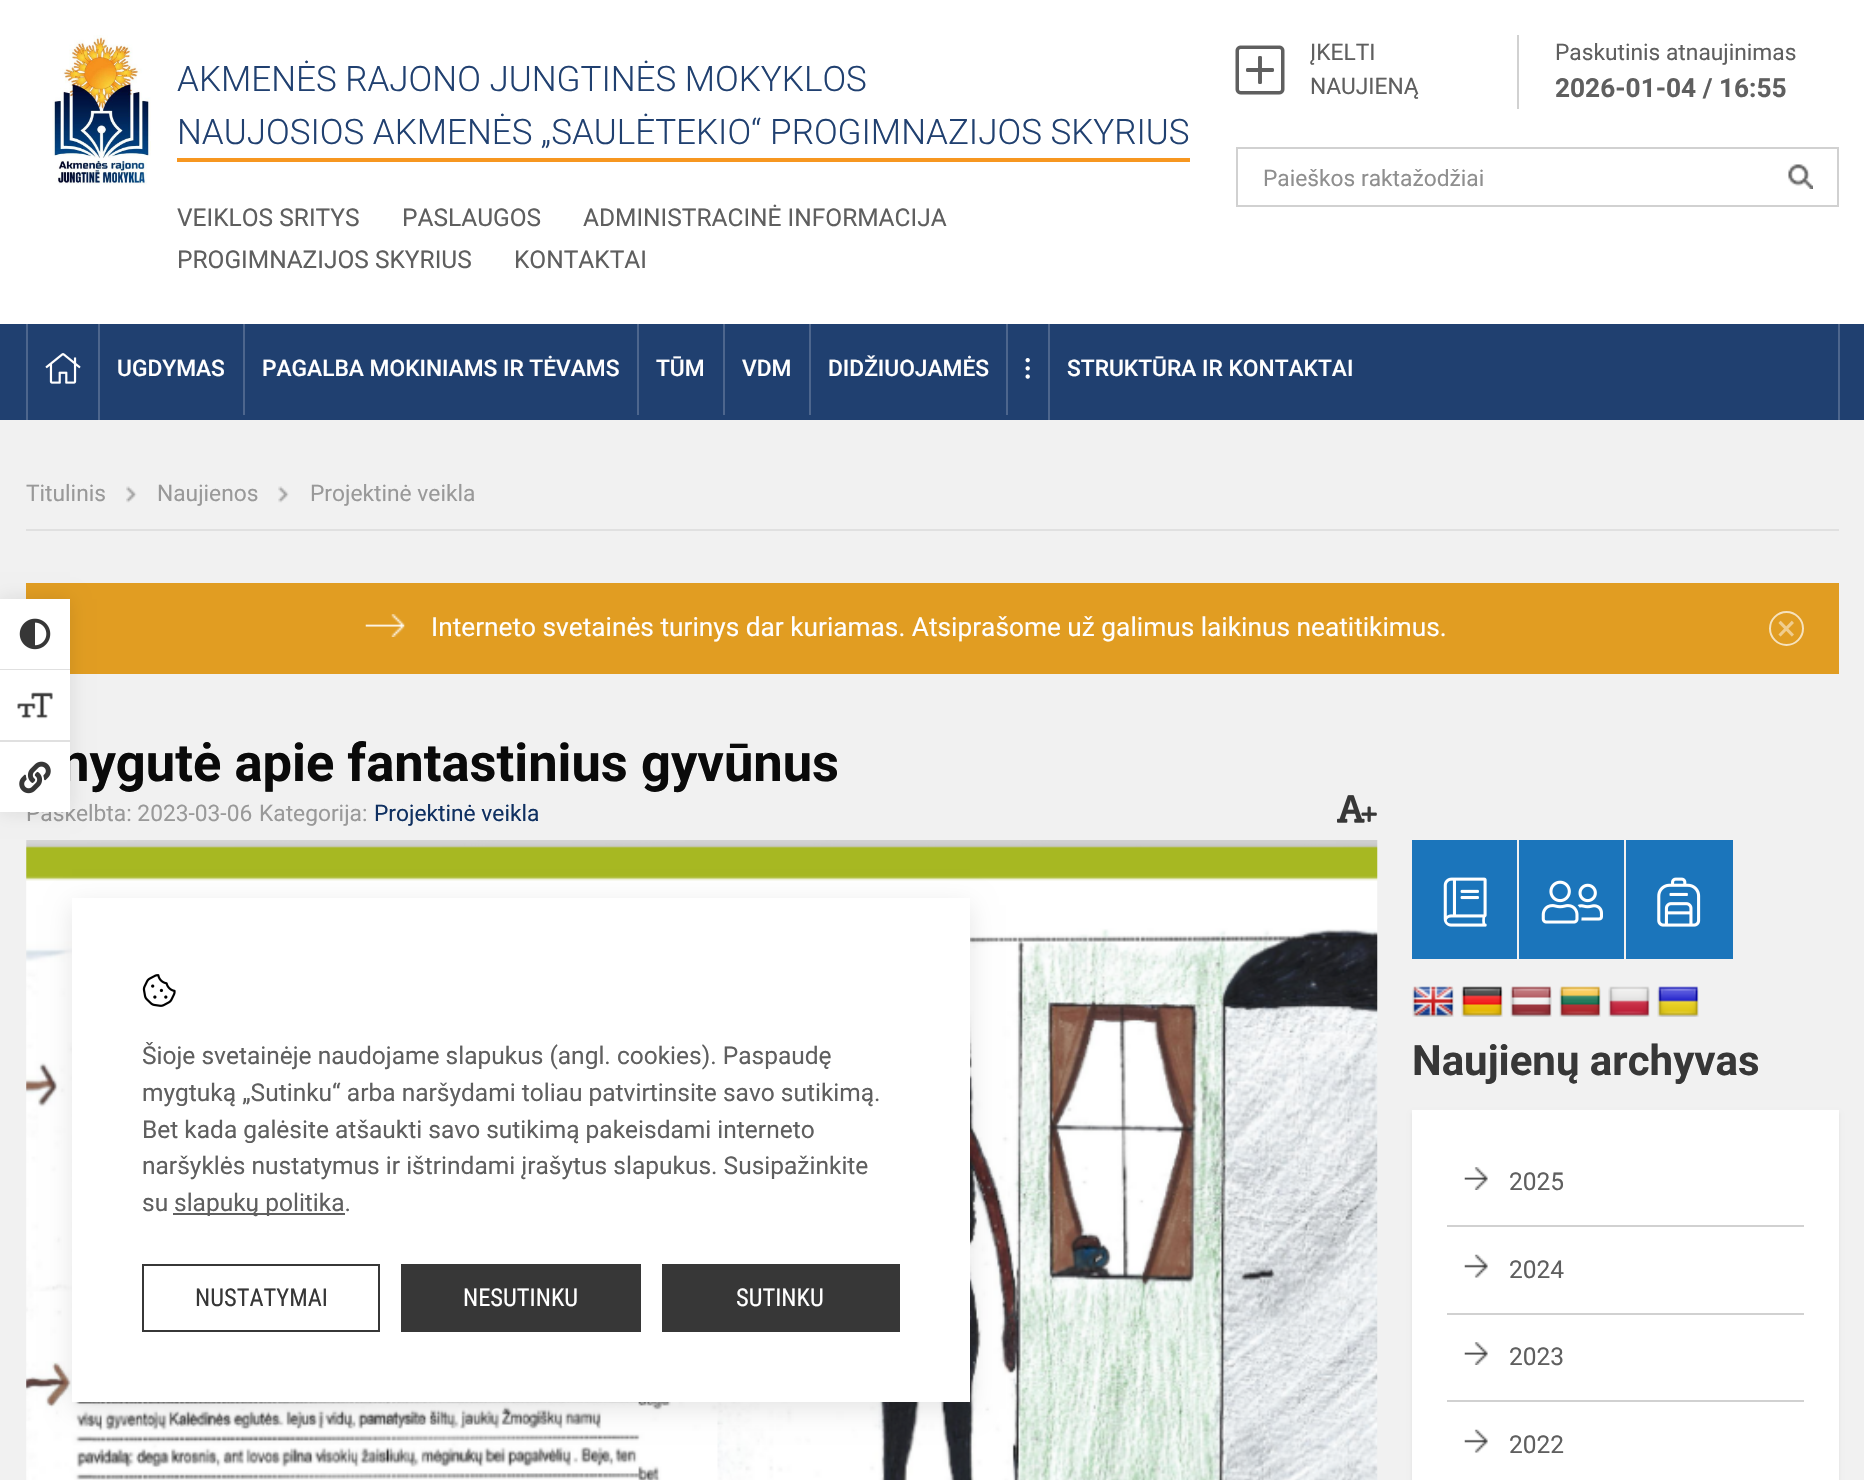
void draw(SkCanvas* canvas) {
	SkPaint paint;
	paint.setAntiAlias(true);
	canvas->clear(0xffffffff);
	canvas->drawImageRect(SkImages::DeferredFromEncodedData(SkData::MakeFromFileName("img1.png")), SkRect::MakeXYWH(52, 35, 99, 150), SkSamplingOptions());
	SkFont f1(fontMgr->matchFamilyStyle("Roboto", SkFontStyle(300, SkFontStyle::kNormal_Width, SkFontStyle::kUpright_Slant)), 35);
	f1.setSubpixel(true);
	paint.setColor(0xff204070);
	canvas->drawString("AKMENĖS RAJONO JUNGTINĖS MOKYKLOS", 177, 91, f1, paint);
	canvas->drawString("NAUJOSIOS AKMENĖS „SAULĖTEKIO“ PROGIMNAZIJOS SKYRIUS", 177, 144, f1, paint);
	paint.setColor(0xfff79720);
	canvas->drawRect(SkRect::MakeXYWH(177, 158, 1013, 4), paint);
	SkFont f2(fontMgr->matchFamilyStyle("Roboto", SkFontStyle::Normal()), 24.5);
	f2.setSubpixel(true);
	paint.setColor(0xff5f5f5f);
	canvas->drawString("VEIKLOS SRITYS", 177, 226, f2, paint);
	canvas->drawString("PASLAUGOS", 402, 226, f2, paint);
	canvas->drawString("ADMINISTRACINĖ INFORMACIJA", 583, 226, f2, paint);
	canvas->drawString("PROGIMNAZIJOS SKYRIUS", 177, 268, f2, paint);
	canvas->drawString("KONTAKTAI", 514, 268, f2, paint);
	paint.setColor(0xffd1d1d1);
	canvas->drawRect(SkRect::MakeXYWH(1517, 35, 2, 74), paint);
	canvas->drawImageRect(SkImages::DeferredFromEncodedData(SkData::MakeFromFileName("img2.png")), SkRect::MakeXYWH(1235, 45, 50, 50), SkSamplingOptions());
	SkFont f3(fontMgr->matchFamilyStyle("Roboto", SkFontStyle::Normal()), 22.75);
	f3.setSubpixel(true);
	paint.setColor(0xff5f5f5f);
	canvas->drawString("ĮKELTI", 1310, 60, f3, paint);
	canvas->drawString("NAUJIENĄ", 1310, 94, f3, paint);
	canvas->drawString("Paskutinis atnaujinimas", 1555, 60, f3, paint);
	SkFont f4(fontMgr->matchFamilyStyle("Roboto", SkFontStyle::Bold()), 26.25);
	f4.setSubpixel(true);
	canvas->drawString("2026-01-04 / 16:55", 1555, 97, f4, paint);
	paint.setStroke(true);
	paint.setStrokeWidth(2);
	paint.setColor(0xffd1d1d1);
	canvas->drawRect(SkRect::MakeXYWH(1237, 148, 601, 58), paint);
	paint.setStroke(false);
	paint.setColor(0xff8f8f8f);
	canvas->drawString("Paieškos raktažodžiai", 1263, 186, f3, paint);
	canvas->drawImageRect(SkImages::DeferredFromEncodedData(SkData::MakeFromFileName("img3.png")), SkRect::MakeXYWH(1788, 164, 25, 25), SkSamplingOptions());
	paint.setColor(0xff204070);
	canvas->drawRect(SkRect::MakeXYWH(0, 324, 1864, 96), paint);
	paint.setColor(0xff4d668d);
	canvas->drawRect(SkRect::MakeXYWH(1838, 324, 2, 96), paint);
	canvas->drawRect(SkRect::MakeXYWH(26, 324, 2, 96), paint);
	canvas->drawRect(SkRect::MakeXYWH(98, 324, 2, 96), paint);
	canvas->drawImageRect(SkImages::DeferredFromEncodedData(SkData::MakeFromFileName("img4.png")), SkRect::MakeXYWH(45, 353, 36, 31), SkSamplingOptions());
	canvas->drawRect(SkRect::MakeXYWH(243, 324, 2, 91), paint);
	SkFont f5(fontMgr->matchFamilyStyle("Roboto", SkFontStyle(500, SkFontStyle::kNormal_Width, SkFontStyle::kUpright_Slant)), 22.75);
	f5.setSubpixel(true);
	paint.setColor(0xffffffff);
	canvas->drawString("UGDYMAS", 117, 376, f5, paint);
	paint.setColor(0xff4d668d);
	canvas->drawRect(SkRect::MakeXYWH(637, 324, 2, 91), paint);
	paint.setColor(0xffffffff);
	canvas->drawString("PAGALBA MOKINIAMS IR TĖVAMS", 262, 376, f5, paint);
	paint.setColor(0xff4d668d);
	canvas->drawRect(SkRect::MakeXYWH(723, 324, 2, 91), paint);
	paint.setColor(0xffffffff);
	canvas->drawString("TŪM", 656, 376, f5, paint);
	paint.setColor(0xff4d668d);
	canvas->drawRect(SkRect::MakeXYWH(809, 324, 2, 91), paint);
	paint.setColor(0xffffffff);
	canvas->drawString("VDM", 742, 376, f5, paint);
	paint.setColor(0xff4d668d);
	canvas->drawRect(SkRect::MakeXYWH(1006, 324, 2, 91), paint);
	paint.setColor(0xffffffff);
	canvas->drawString("DIDŽIUOJAMĖS", 828, 376, f5, paint);
	paint.setColor(0xff4d668d);
	canvas->drawRect(SkRect::MakeXYWH(1048, 324, 2, 96), paint);
	canvas->drawImageRect(SkImages::DeferredFromEncodedData(SkData::MakeFromFileName("img5.png")), SkRect::MakeXYWH(1025, 358, 5, 21), SkSamplingOptions());
	paint.setColor(0xffffffff);
	canvas->drawString("STRUKTŪRA IR KONTAKTAI", 1067, 376, f5, paint);
	paint.setColor(0xfff1f1f1);
	canvas->drawRect(SkRect::MakeXYWH(0, 420, 1864, 1060), paint);
	paint.setColor(0xffe0e0e0);
	canvas->drawRect(SkRect::MakeXYWH(26, 529, 1813, 2), paint);
	paint.setColor(0xff999999);
	canvas->drawString("Titulinis", 26, 501, f3, paint);
	canvas->drawImageRect(SkImages::DeferredFromEncodedData(SkData::MakeFromFileName("img6.png")), SkRect::MakeXYWH(126, 486, 11, 17), SkSamplingOptions());
	canvas->drawString("Naujienos", 157, 501, f3, paint);
	canvas->drawImageRect(SkImages::DeferredFromEncodedData(SkData::MakeFromFileName("img7.png")), SkRect::MakeXYWH(278, 486, 11, 17), SkSamplingOptions());
	canvas->drawString("Projektinė veikla", 310, 501, f3, paint);
	paint.setColor(0xffe19d22);
	canvas->drawRect(SkRect::MakeXYWH(26, 583, 1813, 91), paint);
	canvas->drawImageRect(SkImages::DeferredFromEncodedData(SkData::MakeFromFileName("img8.png")), SkRect::MakeXYWH(365, 614, 40, 23), SkSamplingOptions());
	SkFont f6(fontMgr->matchFamilyStyle("Roboto", SkFontStyle::Normal()), 26.25);
	f6.setSubpixel(true);
	paint.setColor(0xffffffff);
	canvas->drawString("Interneto svetainės turinys dar kuriamas. Atsiprašome už galimus laikinus neatitikimus.", 431, 636, f6, paint);
	paint.setStroke(true);
	paint.setColor(0xfff6e2bd);
	canvas->drawCircle(1786.5, 628.5, 16.5, paint);
	SkFont f7(fontMgr->matchFamilyStyle("Roboto", SkFontStyle::Normal()), 35);
	f7.setSubpixel(true);
	paint.setStroke(false);
	paint.setColor(0xfff0cd8e);
	canvas->drawString("×", 1777, 640, f7, paint);
	SkFont f8(fontMgr->matchFamilyStyle("Roboto", SkFontStyle::Bold()), 52.5);
	f8.setSubpixel(true);
	paint.setColor(0xff0a0a0a);
	canvas->drawString("nygutė apie fantastinius gyvūnus", 60, 781, f8, paint);
	paint.setColor(0xff999999);
	canvas->drawString("Paskelbta: 2023-03-06", 26, 821, f3, paint);
	canvas->drawString("Kategorija:", 259, 821, f3, paint);
	paint.setColor(0xff0f3061);
	canvas->drawString("Projektinė veikla", 374, 821, f3, paint);
	canvas->drawImageRect(SkImages::DeferredFromEncodedData(SkData::MakeFromFileName("img9.png")), SkRect::MakeXYWH(1337, 795, 28, 28), SkSamplingOptions());
	canvas->drawImageRect(SkImages::DeferredFromEncodedData(SkData::MakeFromFileName("img10.png")), SkRect::MakeXYWH(1361, 806, 16, 16), SkSamplingOptions());
	canvas->drawImageRect(SkImages::DeferredFromEncodedData(SkData::MakeFromFileName("img11.png")), SkRect::MakeXYWH(26, 840, 1352, 640), SkSamplingOptions());
	paint.setColor(0xff1b75bb);
	canvas->drawRect(SkRect::MakeXYWH(1412, 840, 105, 119), paint);
	canvas->drawImageRect(SkImages::DeferredFromEncodedData(SkData::MakeFromFileName("img12.png")), SkRect::MakeXYWH(1443, 877, 44, 50), SkSamplingOptions());
	canvas->drawRect(SkRect::MakeXYWH(1519, 840, 105, 119), paint);
	canvas->drawImageRect(SkImages::DeferredFromEncodedData(SkData::MakeFromFileName("img13.png")), SkRect::MakeXYWH(1541, 880, 62, 44), SkSamplingOptions());
	canvas->drawRect(SkRect::MakeXYWH(1626, 840, 107, 119), paint);
	canvas->drawImageRect(SkImages::DeferredFromEncodedData(SkData::MakeFromFileName("img14.png")), SkRect::MakeXYWH(1657, 877, 44, 50), SkSamplingOptions());
	canvas->drawImageRect(SkImages::DeferredFromEncodedData(SkData::MakeFromFileName("img15.png")), SkRect::MakeXYWH(1412, 986, 42, 31), SkSamplingOptions());
	canvas->drawImageRect(SkImages::DeferredFromEncodedData(SkData::MakeFromFileName("img16.png")), SkRect::MakeXYWH(1461, 986, 42, 31), SkSamplingOptions());
	canvas->drawImageRect(SkImages::DeferredFromEncodedData(SkData::MakeFromFileName("img17.png")), SkRect::MakeXYWH(1510, 986, 42, 31), SkSamplingOptions());
	canvas->drawImageRect(SkImages::DeferredFromEncodedData(SkData::MakeFromFileName("img18.png")), SkRect::MakeXYWH(1559, 986, 42, 31), SkSamplingOptions());
	canvas->drawImageRect(SkImages::DeferredFromEncodedData(SkData::MakeFromFileName("img19.png")), SkRect::MakeXYWH(1608, 986, 42, 31), SkSamplingOptions());
	canvas->drawImageRect(SkImages::DeferredFromEncodedData(SkData::MakeFromFileName("img20.png")), SkRect::MakeXYWH(1657, 986, 42, 31), SkSamplingOptions());
	SkFont f9(fontMgr->matchFamilyStyle("Roboto", SkFontStyle::Bold()), 42);
	f9.setSubpixel(true);
	paint.setColor(0xff373737);
	canvas->drawString("Naujienų archyvas", 1412, 1075, f9, paint);
	paint.setColor(0xffe0e0e0);
	paint.setMaskFilter(SkMaskFilter::MakeBlur(kNormal_SkBlurStyle, 2));
	canvas->drawRect(SkRect::MakeXYWH(1412, 1113, 427, 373), paint);
	paint.setMaskFilter(nullptr);
	paint.setColor(0xffffffff);
	canvas->drawRect(SkRect::MakeXYWH(1412, 1110, 427, 370), paint);
	paint.setColor(0xffd1d1d1);
	canvas->drawRect(SkRect::MakeXYWH(1447, 1225, 357, 2), paint);
	canvas->drawImageRect(SkImages::DeferredFromEncodedData(SkData::MakeFromFileName("img21.png")), SkRect::MakeXYWH(1464, 1167, 24, 23), SkSamplingOptions());
	paint.setColor(0xff5f5f5f);
	canvas->drawString("2025", 1509, 1190, f2, paint);
	paint.setColor(0xffd1d1d1);
	canvas->drawRect(SkRect::MakeXYWH(1447, 1313, 357, 2), paint);
	canvas->drawImageRect(SkImages::DeferredFromEncodedData(SkData::MakeFromFileName("img22.png")), SkRect::MakeXYWH(1464, 1254, 24, 24), SkSamplingOptions());
	paint.setColor(0xff5f5f5f);
	canvas->drawString("2024", 1509, 1278, f2, paint);
	paint.setColor(0xffd1d1d1);
	canvas->drawRect(SkRect::MakeXYWH(1447, 1400, 357, 2), paint);
	canvas->drawImageRect(SkImages::DeferredFromEncodedData(SkData::MakeFromFileName("img21.png")), SkRect::MakeXYWH(1464, 1342, 24, 23), SkSamplingOptions());
	paint.setColor(0xff5f5f5f);
	canvas->drawString("2023", 1509, 1365, f2, paint);
	canvas->drawImageRect(SkImages::DeferredFromEncodedData(SkData::MakeFromFileName("img22.png")), SkRect::MakeXYWH(1464, 1429, 24, 24), SkSamplingOptions());
	canvas->drawString("2022", 1509, 1453, f2, paint);
	paint.setColor(0x1a000000);
	paint.setMaskFilter(SkMaskFilter::MakeBlur(kNormal_SkBlurStyle, 9));
	canvas->drawRect(SkRect::MakeXYWH(0, 599, 70, 213), paint);
	paint.setMaskFilter(nullptr);
	paint.setColor(0xffe0e0e0);
	canvas->drawRect(SkRect::MakeXYWH(0, 669, 70, 1), paint);
	paint.setColor(0xffffffff);
	canvas->drawRect(SkRect::MakeXYWH(0, 599, 70, 70), paint);
	canvas->drawImageRect(SkImages::DeferredFromEncodedData(SkData::MakeFromFileName("img23.png")), SkRect::MakeXYWH(19, 618, 32, 32), SkSamplingOptions());
	paint.setColor(0xffe0e0e0);
	canvas->drawRect(SkRect::MakeXYWH(0, 740, 70, 2), paint);
	paint.setColor(0xffffffff);
	canvas->drawRect(SkRect::MakeXYWH(0, 670, 70, 70), paint);
	canvas->drawImageRect(SkImages::DeferredFromEncodedData(SkData::MakeFromFileName("img24.png")), SkRect::MakeXYWH(17, 692, 36, 27), SkSamplingOptions());
	canvas->drawRect(SkRect::MakeXYWH(0, 742, 70, 70), paint);
	canvas->drawImageRect(SkImages::DeferredFromEncodedData(SkData::MakeFromFileName("img25.png")), SkRect::MakeXYWH(19, 761, 32, 33), SkSamplingOptions());
	paint.setColor(0x1a000000);
	paint.setMaskFilter(SkMaskFilter::MakeBlur(kNormal_SkBlurStyle, 12));
	canvas->drawRect(SkRect::MakeXYWH(72, 905, 898, 504), paint);
	paint.setMaskFilter(nullptr);
	paint.setColor(0xffffffff);
	canvas->drawRect(SkRect::MakeXYWH(72, 898, 898, 504), paint);
	canvas->drawImageRect(SkImages::DeferredFromEncodedData(SkData::MakeFromFileName("img26.png")), SkRect::MakeXYWH(142, 974, 34, 33), SkSamplingOptions());
	paint.setColor(0xff5f5f5f);
	canvas->drawString("Šioje svetainėje naudojame slapukus (angl. cookies). Paspaudę", 142, 1064, f2, paint);
	canvas->drawString("mygtuką „Sutinku“ arba naršydami toliau patvirtinsite savo sutikimą.", 142, 1101, f2, paint);
	canvas->drawString("Bet kada galėsite atšaukti savo sutikimą pakeisdami interneto", 142, 1138, f2, paint);
	canvas->drawString("naršyklės nustatymus ir ištrindami įrašytus slapukus. Susipažinkite", 142, 1174, f2, paint);
	canvas->drawString("su", 142, 1211, f2, paint);
	canvas->drawRect(SkRect::MakeXYWH(173, 1213, 172, 2), paint);
	canvas->drawString("slapukų politika.", 174, 1211, f2, paint);
	paint.setStroke(true);
	paint.setColor(0xff373737);
	canvas->drawRect(SkRect::MakeXYWH(143, 1265, 236, 66), paint);
	SkFont f10(fontMgr->matchFamilyStyle("Roboto Condensed", SkFontStyle::Normal()), 24.5);
	f10.setSubpixel(true);
	paint.setStroke(false);
	canvas->drawString("NUSTATYMAI", 195, 1306, f10, paint);
	canvas->drawRect(SkRect::MakeXYWH(401, 1264, 240, 68), paint);
	paint.setColor(0xffffffff);
	canvas->drawString("NESUTINKU", 463, 1306, f10, paint);
	paint.setColor(0xff373737);
	canvas->drawRect(SkRect::MakeXYWH(662, 1264, 238, 68), paint);
	paint.setColor(0xffffffff);
	canvas->drawString("SUTINKU", 736, 1306, f10, paint);
}
